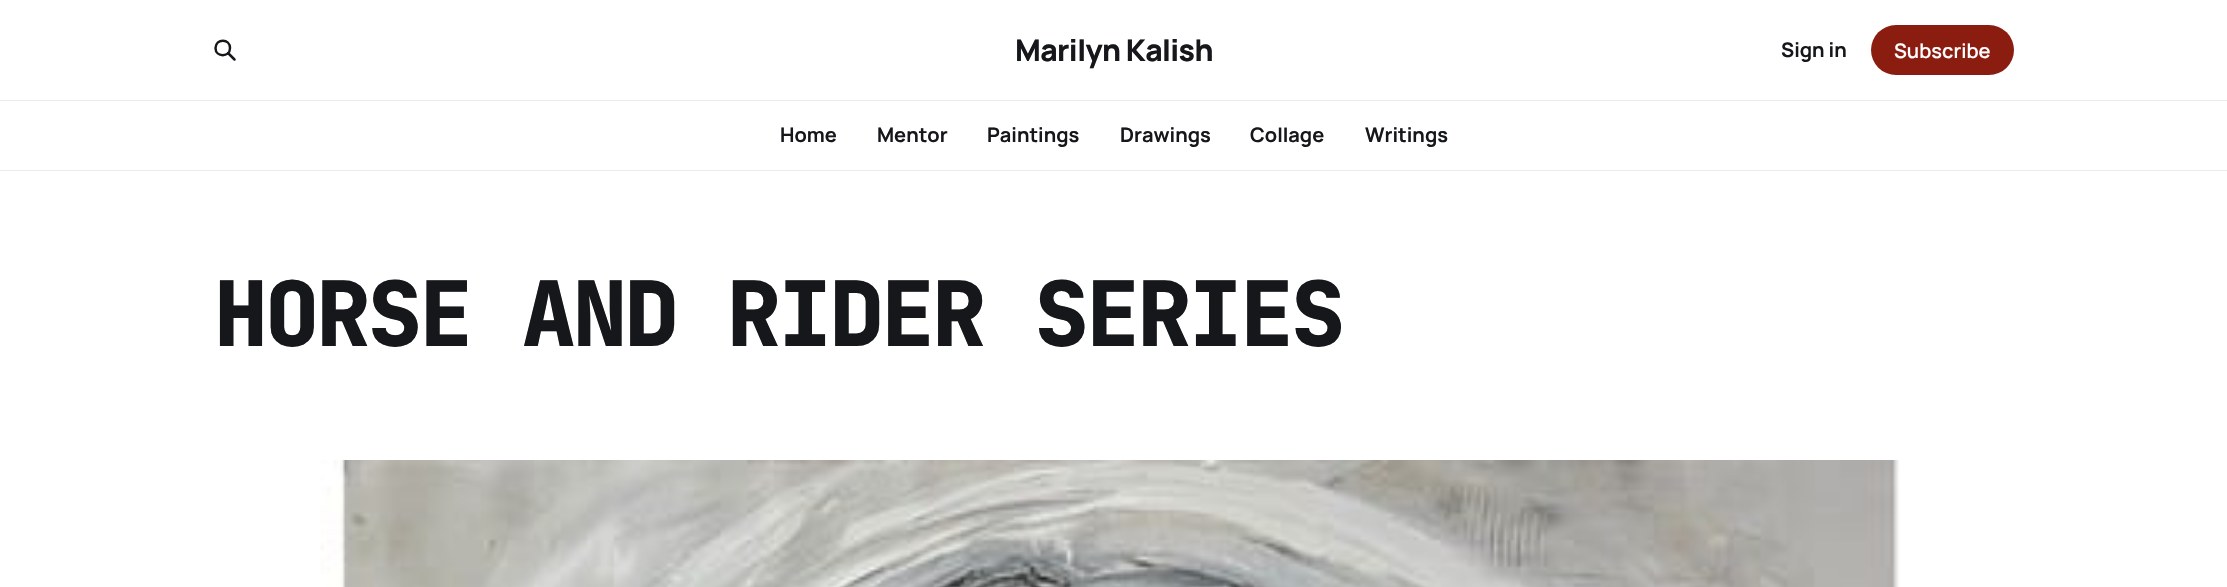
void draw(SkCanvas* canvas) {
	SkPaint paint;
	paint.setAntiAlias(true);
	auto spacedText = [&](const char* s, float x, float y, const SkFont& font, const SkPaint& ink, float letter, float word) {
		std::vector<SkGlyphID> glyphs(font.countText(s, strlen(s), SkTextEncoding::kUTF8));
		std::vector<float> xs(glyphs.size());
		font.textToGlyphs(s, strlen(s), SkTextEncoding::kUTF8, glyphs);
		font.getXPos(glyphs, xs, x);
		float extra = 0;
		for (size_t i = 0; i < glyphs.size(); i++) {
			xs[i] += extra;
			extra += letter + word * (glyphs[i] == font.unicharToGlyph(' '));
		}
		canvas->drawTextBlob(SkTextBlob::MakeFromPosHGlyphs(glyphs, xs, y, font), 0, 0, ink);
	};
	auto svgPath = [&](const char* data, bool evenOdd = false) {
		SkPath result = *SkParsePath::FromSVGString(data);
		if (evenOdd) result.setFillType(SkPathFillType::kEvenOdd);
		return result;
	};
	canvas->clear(0xffffffff);
	SkFont f1(fontMgr->matchFamilyStyle("Manrope", SkFontStyle(800, SkFontStyle::kNormal_Width, SkFontStyle::kUpright_Slant)), 30);
	f1.setSubpixel(true);
	paint.setColor(0xff15171a);
	spacedText("Marilyn Kalish", 1015, 61, f1, paint, -0.6, 0);
	paint.setStroke(true);
	paint.setStrokeWidth(2.5);
	paint.setStrokeCap(SkPaint::kRound_Cap);
	paint.setStrokeJoin(SkPaint::kRound_Join);
	canvas->drawPath(svgPath("M234.5 59.5L228 53ZM230 48C230 57.5 215.5 57.5 215.5 48C216 38 230 38.5 230 48Z"), paint);
	SkFont f2(fontMgr->matchFamilyStyle("Manrope", SkFontStyle::Bold()), 20);
	f2.setSubpixel(true);
	paint.setStroke(false);
	canvas->drawString("Sign in", 1781, 57, f2, paint);
	paint.setColor(0xff8a1c10);
	canvas->drawRoundRect(SkRect::MakeXYWH(1871, 25, 143, 50), 25, 25, paint);
	SkFont f3(fontMgr->matchFamilyStyle("Manrope", SkFontStyle(600, SkFontStyle::kNormal_Width, SkFontStyle::kUpright_Slant)), 20);
	f3.setSubpixel(true);
	paint.setColor(0xffffffff);
	canvas->drawString("Subscribe", 1894, 58, f3, paint);
	paint.setColor(0xffebebeb);
	canvas->drawRect(SkRect::MakeXYWH(0, 100, 2227, 1), paint);
	paint.setColor(0xff15171a);
	canvas->drawString("Home", 780, 142, f2, paint);
	canvas->drawString("Mentor", 877, 142, f2, paint);
	canvas->drawString("Paintings", 987, 142, f2, paint);
	canvas->drawString("Drawings", 1120, 142, f2, paint);
	canvas->drawString("Collage", 1250, 142, f2, paint);
	canvas->drawString("Writings", 1365, 142, f2, paint);
	paint.setColor(0xffebebeb);
	canvas->drawRect(SkRect::MakeXYWH(0, 170, 2227, 1), paint);
	SkFont f4(fontMgr->matchFamilyStyle("JetBrains Mono", SkFontStyle(800, SkFontStyle::kNormal_Width, SkFontStyle::kUpright_Slant)), 90);
	f4.setSubpixel(true);
	paint.setColor(0xff15171a);
	spacedText("HORSE AND RIDER SERIES", 214, 346, f4, paint, -2.7, 0);
	canvas->drawImageRect(SkImages::DeferredFromEncodedData(SkData::MakeFromFileName("img1.png")), SkRect::MakeXYWH(320, 460, 1580, 127), SkSamplingOptions());
}
